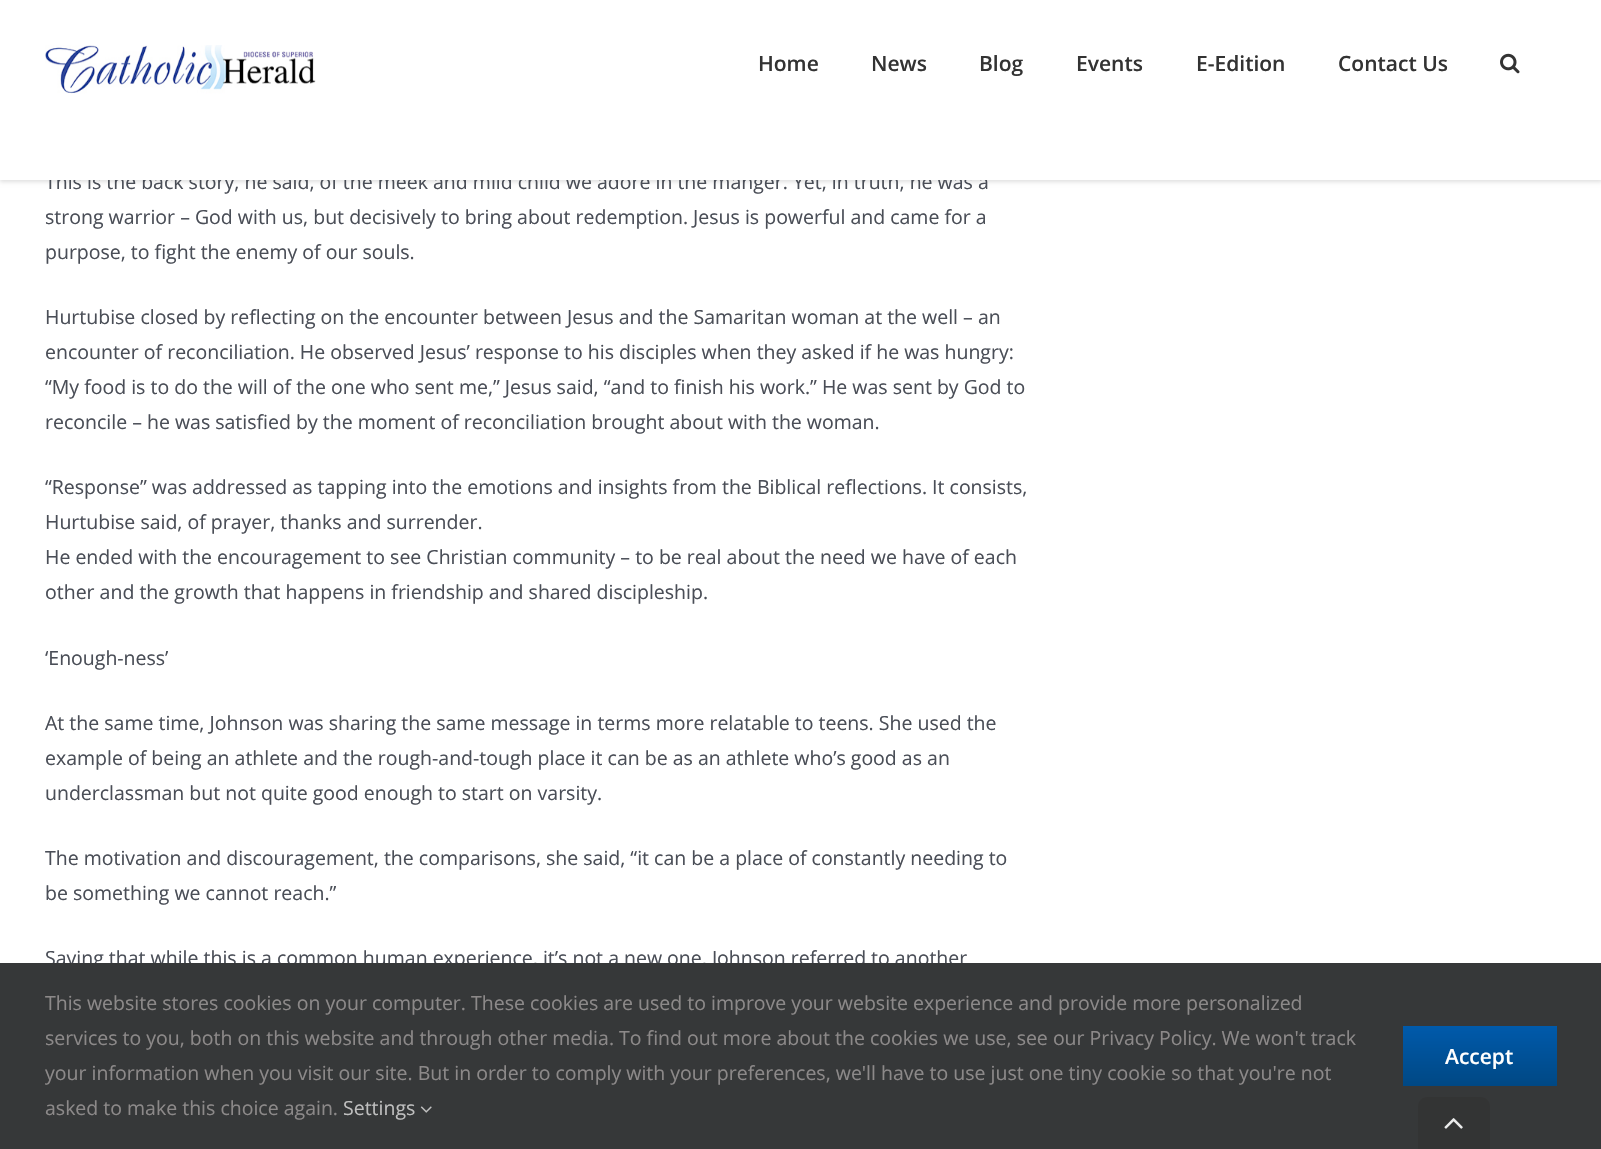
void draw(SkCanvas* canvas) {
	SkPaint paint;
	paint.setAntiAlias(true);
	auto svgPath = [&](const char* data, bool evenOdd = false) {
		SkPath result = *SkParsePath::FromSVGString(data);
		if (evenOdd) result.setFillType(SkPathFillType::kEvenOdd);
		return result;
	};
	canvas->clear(0xffffffff);
	paint.setColor(0x1f000000);
	paint.setMaskFilter(SkMaskFilter::MakeBlur(kNormal_SkBlurStyle, 2));
	canvas->drawRect(SkRect::MakeXYWH(0, 2, 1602, 180), paint);
	paint.setMaskFilter(nullptr);
	SkFont f1(fontMgr->matchFamilyStyle("Open Sans", SkFontStyle::Normal()), 19.5);
	f1.setSubpixel(true);
	paint.setColor(0xff4a4e57);
	canvas->drawString("This is the back story, he said, of the meek and mild child we adore in the manger. Yet, in truth, he was a", 45, 189, f1, paint);
	paint.setColor(0xffffffff);
	canvas->drawRect(SkRect::MakeXYWH(0, 0, 1601, 180), paint);
	canvas->drawImageRect(SkImages::DeferredFromEncodedData(SkData::MakeFromFileName("img1.png")), SkRect::MakeXYWH(45, 45, 271, 49), SkSamplingOptions());
	SkFont f2(fontMgr->matchFamilyStyle("Open Sans", SkFontStyle(600, SkFontStyle::kNormal_Width, SkFontStyle::kUpright_Slant)), 21);
	f2.setSubpixel(true);
	paint.setColor(0xff333333);
	canvas->drawString("Home", 758, 71, f2, paint);
	canvas->drawString("News", 871, 71, f2, paint);
	canvas->drawString("Blog", 979, 71, f2, paint);
	canvas->drawString("Events", 1076, 71, f2, paint);
	canvas->drawString("E-Edition", 1196, 71, f2, paint);
	canvas->drawString("Contact Us", 1338, 71, f2, paint);
	canvas->drawImageRect(SkImages::DeferredFromEncodedData(SkData::MakeFromFileName("img2.png")), SkRect::MakeXYWH(1500, 53, 20, 21), SkSamplingOptions());
	paint.setColor(0xff4a4e57);
	canvas->drawString("strong warrior – God with us, but decisively to bring about redemption. Jesus is powerful and came for a", 45, 224, f1, paint);
	canvas->drawString("purpose, to fight the enemy of our souls.", 45, 259, f1, paint);
	canvas->drawString("Hurtubise closed by reflecting on the encounter between Jesus and the Samaritan woman at the well – an", 45, 324, f1, paint);
	canvas->drawString("encounter of reconciliation. He observed Jesus’ response to his disciples when they asked if he was hungry:", 45, 359, f1, paint);
	canvas->drawString("“My food is to do the will of the one who sent me,” Jesus said, “and to finish his work.” He was sent by God to", 45, 394, f1, paint);
	canvas->drawString("reconcile – he was satisfied by the moment of reconciliation brought about with the woman.", 45, 429, f1, paint);
	canvas->drawString("“Response” was addressed as tapping into the emotions and insights from the Biblical reflections. It consists,", 45, 494, f1, paint);
	canvas->drawString("Hurtubise said, of prayer, thanks and surrender.", 45, 529, f1, paint);
	canvas->drawString("He ended with the encouragement to see Christian community – to be real about the need we have of each", 45, 564, f1, paint);
	canvas->drawString("other and the growth that happens in friendship and shared discipleship.", 45, 599, f1, paint);
	canvas->drawString("‘Enough-ness’", 45, 665, f1, paint);
	canvas->drawString("At the same time, Johnson was sharing the same message in terms more relatable to teens. She used the", 45, 730, f1, paint);
	canvas->drawString("example of being an athlete and the rough-and-tough place it can be as an athlete who’s good as an", 45, 765, f1, paint);
	canvas->drawString("underclassman but not quite good enough to start on varsity.", 45, 800, f1, paint);
	canvas->drawString("The motivation and discouragement, the comparisons, she said, “it can be a place of constantly needing to", 45, 865, f1, paint);
	canvas->drawString("be something we cannot reach.”", 45, 900, f1, paint);
	canvas->drawString("Saying that while this is a common human experience, it’s not a new one, Johnson referred to another", 45, 965, f1, paint);
	paint.setColor(0xff363839);
	canvas->drawRect(SkRect::MakeXYWH(0, 963, 1601, 186), paint);
	paint.setColor(0xff8c8989);
	canvas->drawString("This website stores cookies on your computer. These cookies are used to improve your website experience and provide more personalized", 45, 1010, f1, paint);
	canvas->drawString("services to you, both on this website and through other media. To find out more about the cookies we use, see our Privacy Policy. We won't track", 45, 1045, f1, paint);
	canvas->drawString("your information when you visit our site. But in order to comply with your preferences, we'll have to use just one tiny cookie so that you're not", 45, 1080, f1, paint);
	canvas->drawString("asked to make this choice again.", 45, 1115, f1, paint);
	paint.setColor(0xffbfbfbf);
	canvas->drawString("Settings", 343, 1115, f1, paint);
	canvas->drawImageRect(SkImages::DeferredFromEncodedData(SkData::MakeFromFileName("img3.png")), SkRect::MakeXYWH(420, 1106, 12, 7), SkSamplingOptions());
	{
		const SkColor colors[] = {0xff005aab, 0xff004884};
		const float stops[] = {0, 1};
		const SkPoint ends[] = {{1480, 1026}, {1480, 1086}};
		paint.setShader(SkGradientShader::MakeLinear(ends, colors, stops, 2, SkTileMode::kClamp));
		paint.setAlpha(255);
	}
	canvas->drawRect(SkRect::MakeXYWH(1403, 1026, 154, 60), paint);
	paint.setShader(nullptr);
	paint.setColor(0xffffffff);
	canvas->drawString("Accept", 1445, 1064, f2, paint);
	paint.setColor(0xff333434);
	canvas->drawPath(svgPath("M1427 1097H1481C1486 1097 1490 1101 1490 1106V1149H1418V1106C1418 1101 1422 1097 1427 1097Z"), paint);
	canvas->drawImageRect(SkImages::DeferredFromEncodedData(SkData::MakeFromFileName("img4.png")), SkRect::MakeXYWH(1444, 1118, 19, 11), SkSamplingOptions());
}
